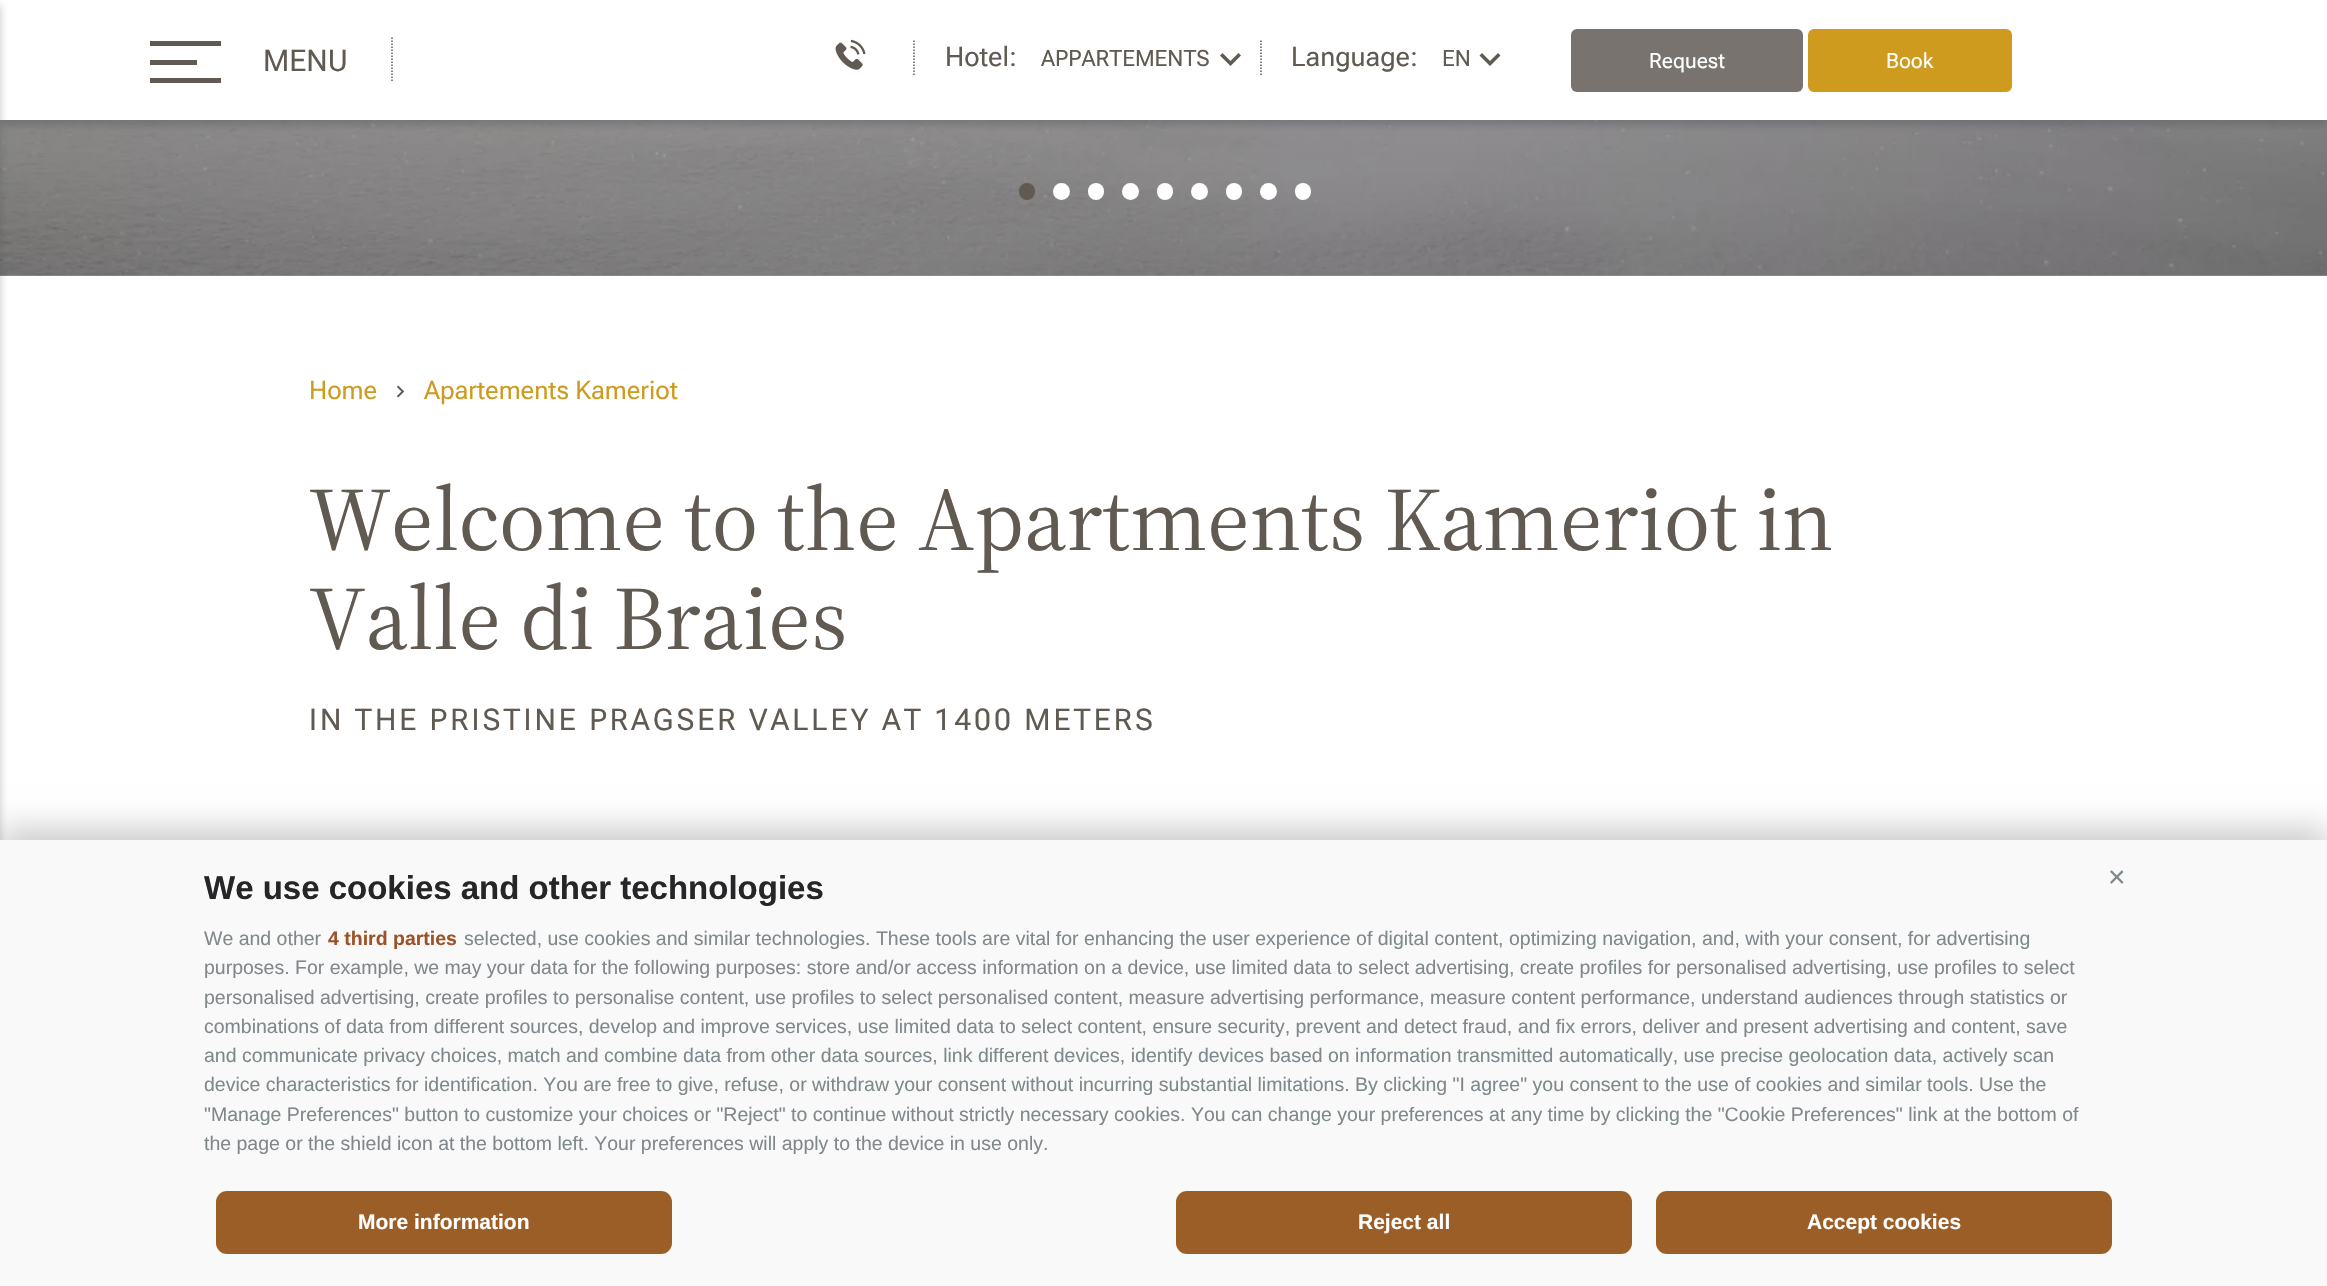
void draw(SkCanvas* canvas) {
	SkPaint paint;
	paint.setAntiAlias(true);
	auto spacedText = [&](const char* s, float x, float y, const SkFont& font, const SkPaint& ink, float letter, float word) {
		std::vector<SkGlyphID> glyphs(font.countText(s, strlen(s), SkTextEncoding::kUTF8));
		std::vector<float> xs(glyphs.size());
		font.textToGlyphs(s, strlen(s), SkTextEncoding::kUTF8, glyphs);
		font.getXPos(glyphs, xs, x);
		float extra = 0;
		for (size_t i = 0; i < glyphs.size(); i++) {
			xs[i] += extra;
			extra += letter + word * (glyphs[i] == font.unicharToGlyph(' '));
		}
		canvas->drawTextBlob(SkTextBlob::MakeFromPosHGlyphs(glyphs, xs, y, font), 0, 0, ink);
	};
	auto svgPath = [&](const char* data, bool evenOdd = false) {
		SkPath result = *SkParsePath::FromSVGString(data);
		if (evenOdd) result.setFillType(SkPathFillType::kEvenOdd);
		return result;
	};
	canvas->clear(0xffffffff);
	canvas->drawImageRect(SkImages::DeferredFromEncodedData(SkData::MakeFromFileName("img2.png")), SkRect::MakeXYWH(0, 120, 2327, 156), SkSamplingOptions());
	{
		const SkColor colors[] = {0x00000000, 0x66000000};
		const float stops[] = {0, 1};
		const SkPoint ends[] = {{1164, -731}, {1164, 276}};
		paint.setShader(SkGradientShader::MakeLinear(ends, colors, stops, 2, SkTileMode::kClamp));
		paint.setAlpha(255);
	}
	canvas->drawRect(SkRect::MakeXYWH(0, 120, 2327, 156), paint);
	paint.setShader(nullptr);
	paint.setColor(0x4d393f48);
	paint.setMaskFilter(SkMaskFilter::MakeBlur(kNormal_SkBlurStyle, 4));
	canvas->drawRect(SkRect::MakeXYWH(0, 5, 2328, 120), paint);
	paint.setMaskFilter(nullptr);
	paint.setColor(0xffffffff);
	canvas->drawRect(SkRect::MakeXYWH(0, 0, 2327, 120), paint);
	paint.setColor(0xff615a52);
	canvas->drawRect(SkRect::MakeXYWH(150, 41, 71, 5), paint);
	canvas->drawRect(SkRect::MakeXYWH(150, 60, 47, 5), paint);
	canvas->drawRect(SkRect::MakeXYWH(150, 78, 71, 5), paint);
	paint.setStroke(true);
	paint.setStrokeWidth(1.5);
	paint.setPathEffect(SkDashPathEffect::Make({{1.5f, 1.5f}}, 0));
	canvas->drawPath(svgPath("M392 37.5V82.5"), paint);
	paint.setPathEffect(nullptr);
	SkFont f1(fontMgr->matchFamilyStyle("Roboto Flex", SkFontStyle::Normal()), 30);
	f1.setSubpixel(true);
	paint.setStroke(false);
	canvas->drawString("MENU", 263, 71, f1, paint);
	paint.setColor(0x4d393f48);
	paint.setMaskFilter(SkMaskFilter::MakeBlur(kNormal_SkBlurStyle, 4));
	canvas->drawRect(SkRect::MakeXYWH(-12, 5, 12, 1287), paint);
	paint.setMaskFilter(nullptr);
	canvas->drawImageRect(SkImages::DeferredFromEncodedData(SkData::MakeFromFileName("img1.png")), SkRect::MakeXYWH(835, 39, 31, 31), SkSamplingOptions());
	paint.setStroke(true);
	paint.setColor(0xff615a52);
	paint.setPathEffect(SkDashPathEffect::Make({{1.5f, 1.5f}}, 0));
	canvas->drawPath(svgPath("M914 40.5V75"), paint);
	paint.setPathEffect(nullptr);
	SkFont f2(fontMgr->matchFamilyStyle("Roboto Flex", SkFontStyle::Normal()), 27);
	f2.setSubpixel(true);
	paint.setStroke(false);
	canvas->drawString("Hotel:", 945, 66, f2, paint);
	SkFont f3(fontMgr->matchFamilyStyle("Roboto Flex", SkFontStyle::Normal()), 22.5);
	f3.setSubpixel(true);
	canvas->drawString("APPARTEMENTS", 1041, 66, f3, paint);
	canvas->drawPath(svgPath("M1241 55.5L1230.5 66L1220 55.5L1222.5 53L1230.5 61L1238.5 53Z"), paint);
	paint.setStroke(true);
	paint.setPathEffect(SkDashPathEffect::Make({{1.5f, 1.5f}}, 0));
	canvas->drawPath(svgPath("M1261 40.5V75"), paint);
	paint.setPathEffect(nullptr);
	paint.setStroke(false);
	canvas->drawString("Language:", 1291, 66, f2, paint);
	canvas->drawString("EN", 1442, 66, f3, paint);
	canvas->drawPath(svgPath("M1500.5 55.5L1490 66L1479.5 55.5L1482 53L1490 61L1498 53Z"), paint);
	paint.setColor(0xff78736e);
	canvas->drawRoundRect(SkRect::MakeXYWH(1571, 29, 232, 63), 6, 6, paint);
	SkFont f4(fontMgr->matchFamilyStyle("Roboto Flex", SkFontStyle::Normal()), 21);
	f4.setSubpixel(true);
	paint.setColor(0xffffffff);
	canvas->drawString("Request", 1649, 68, f4, paint);
	paint.setColor(0xffcf9b1f);
	canvas->drawRoundRect(SkRect::MakeXYWH(1808, 29, 204, 63), 6, 6, paint);
	paint.setColor(0xffffffff);
	canvas->drawString("Book", 1886, 68, f4, paint);
	paint.setColor(0xff615a52);
	canvas->drawRoundRect(SkRect::MakeXYWH(1019, 183, 16, 17), 8, 8, paint);
	paint.setColor(0xffffffff);
	canvas->drawCircle(1061.5, 191.5, 8.5, paint);
	canvas->drawRoundRect(SkRect::MakeXYWH(1088, 183, 16, 17), 8, 8, paint);
	canvas->drawCircle(1130.5, 191.5, 8.5, paint);
	canvas->drawRoundRect(SkRect::MakeXYWH(1157, 183, 16, 17), 8, 8, paint);
	canvas->drawCircle(1199.5, 191.5, 8.5, paint);
	canvas->drawRoundRect(SkRect::MakeXYWH(1226, 183, 16, 17), 8, 8, paint);
	canvas->drawCircle(1268.5, 191.5, 8.5, paint);
	canvas->drawRoundRect(SkRect::MakeXYWH(1295, 183, 16, 17), 8, 8, paint);
	SkFont f5(fontMgr->matchFamilyStyle("Roboto Flex", SkFontStyle::Normal()), 25.5);
	f5.setSubpixel(true);
	paint.setColor(0xffcf9b1f);
	canvas->drawString("Home", 309, 399, f5, paint);
	canvas->drawImageRect(SkImages::DeferredFromEncodedData(SkData::MakeFromFileName("img3.png")), SkRect::MakeXYWH(396, 385, 9, 13), SkSamplingOptions());
	canvas->drawString("Apartements Kameriot", 424, 399, f5, paint);
	SkFont f6(fontMgr->matchFamilyStyle("Source Serif 4", SkFontStyle::Normal()), 90);
	f6.setSubpixel(true);
	paint.setColor(0xff615a52);
	canvas->drawString("Welcome to the Apartments Kameriot in", 309, 550, f6, paint);
	canvas->drawString("Valle di Braies", 309, 649, f6, paint);
	spacedText("IN THE PRISTINE PRAGSER VALLEY AT 1400 METERS", 309, 730, f1, paint, 3, 0);
	paint.setColor(0x33000000);
	paint.setMaskFilter(SkMaskFilter::MakeBlur(kNormal_SkBlurStyle, 15));
	canvas->drawRect(SkRect::MakeXYWH(0, 828, 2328, 447), paint);
	paint.setMaskFilter(nullptr);
	paint.setColor(0xfff9f9f9);
	canvas->drawRect(SkRect::MakeXYWH(0, 840, 2327, 446), paint);
	SkFont f7(fontMgr->matchFamilyStyle("Liberation Sans", SkFontStyle::Bold()), 33);
	f7.setSubpixel(true);
	paint.setColor(0xff262628);
	canvas->drawString("We use cookies and other technologies", 204, 899, f7, paint);
	SkFont f8(fontMgr->matchFamilyStyle("Liberation Sans", SkFontStyle::Normal()), 30);
	f8.setSubpixel(true);
	paint.setColor(0xff80888c);
	canvas->drawString("×", 2108, 887, f8, paint);
	SkFont f9(fontMgr->matchFamilyStyle("Liberation Sans", SkFontStyle::Normal()), 19.5);
	f9.setSubpixel(true);
	canvas->drawString("We and other", 204, 945, f9, paint);
	SkFont f10(fontMgr->matchFamilyStyle("Liberation Sans", SkFontStyle::Bold()), 19.5);
	f10.setSubpixel(true);
	paint.setColor(0xff9c5327);
	canvas->drawString("4 third parties", 328, 945, f10, paint);
	paint.setColor(0xff80888c);
	canvas->drawString("selected, use cookies and similar technologies. These tools are vital for enhancing the user experience of digital content, optimizing navigation, and, with your consent, for advertising", 464, 945, f9, paint);
	canvas->drawString("purposes. For example, we may your data for the following purposes: store and/or access information on a device, use limited data to select advertising, create profiles for personalised advertising, use profiles to select", 204, 974, f9, paint);
	canvas->drawString("personalised advertising, create profiles to personalise content, use profiles to select personalised content, measure advertising performance, measure content performance, understand audiences through statistics or", 204, 1004, f9, paint);
	canvas->drawString("combinations of data from different sources, develop and improve services, use limited data to select content, ensure security, prevent and detect fraud, and fix errors, deliver and present advertising and content, save", 204, 1033, f9, paint);
	canvas->drawString("and communicate privacy choices, match and combine data from other data sources, link different devices, identify devices based on information transmitted automatically, use precise geolocation data, actively scan", 204, 1062, f9, paint);
	canvas->drawString("device characteristics for identification. You are free to give, refuse, or withdraw your consent without incurring substantial limitations. By clicking \"I agree\" you consent to the use of cookies and similar tools. Use the", 204, 1091, f9, paint);
	canvas->drawString("\"Manage Preferences\" button to customize your choices or \"Reject\" to continue without strictly necessary cookies. You can change your preferences at any time by clicking the \"Cookie Preferences\" link at the bottom of", 204, 1121, f9, paint);
	canvas->drawString("the page or the shield icon at the bottom left. Your preferences will apply to the device in use only.", 204, 1150, f9, paint);
	paint.setColor(0xff9c5e27);
	canvas->drawRoundRect(SkRect::MakeXYWH(216, 1191, 456, 63), 11, 11, paint);
	SkFont f11(fontMgr->matchFamilyStyle("Liberation Sans", SkFontStyle::Bold()), 21);
	f11.setSubpixel(true);
	paint.setColor(0xffffffff);
	canvas->drawString("More information", 358, 1229, f11, paint);
	paint.setColor(0xff9c5e27);
	canvas->drawRoundRect(SkRect::MakeXYWH(1176, 1191, 456, 63), 11, 11, paint);
	paint.setColor(0xffffffff);
	canvas->drawString("Reject all", 1358, 1229, f11, paint);
	paint.setColor(0xff9c5e27);
	canvas->drawRoundRect(SkRect::MakeXYWH(1656, 1191, 456, 63), 11, 11, paint);
	paint.setColor(0xffffffff);
	canvas->drawString("Accept cookies", 1807, 1229, f11, paint);
}
